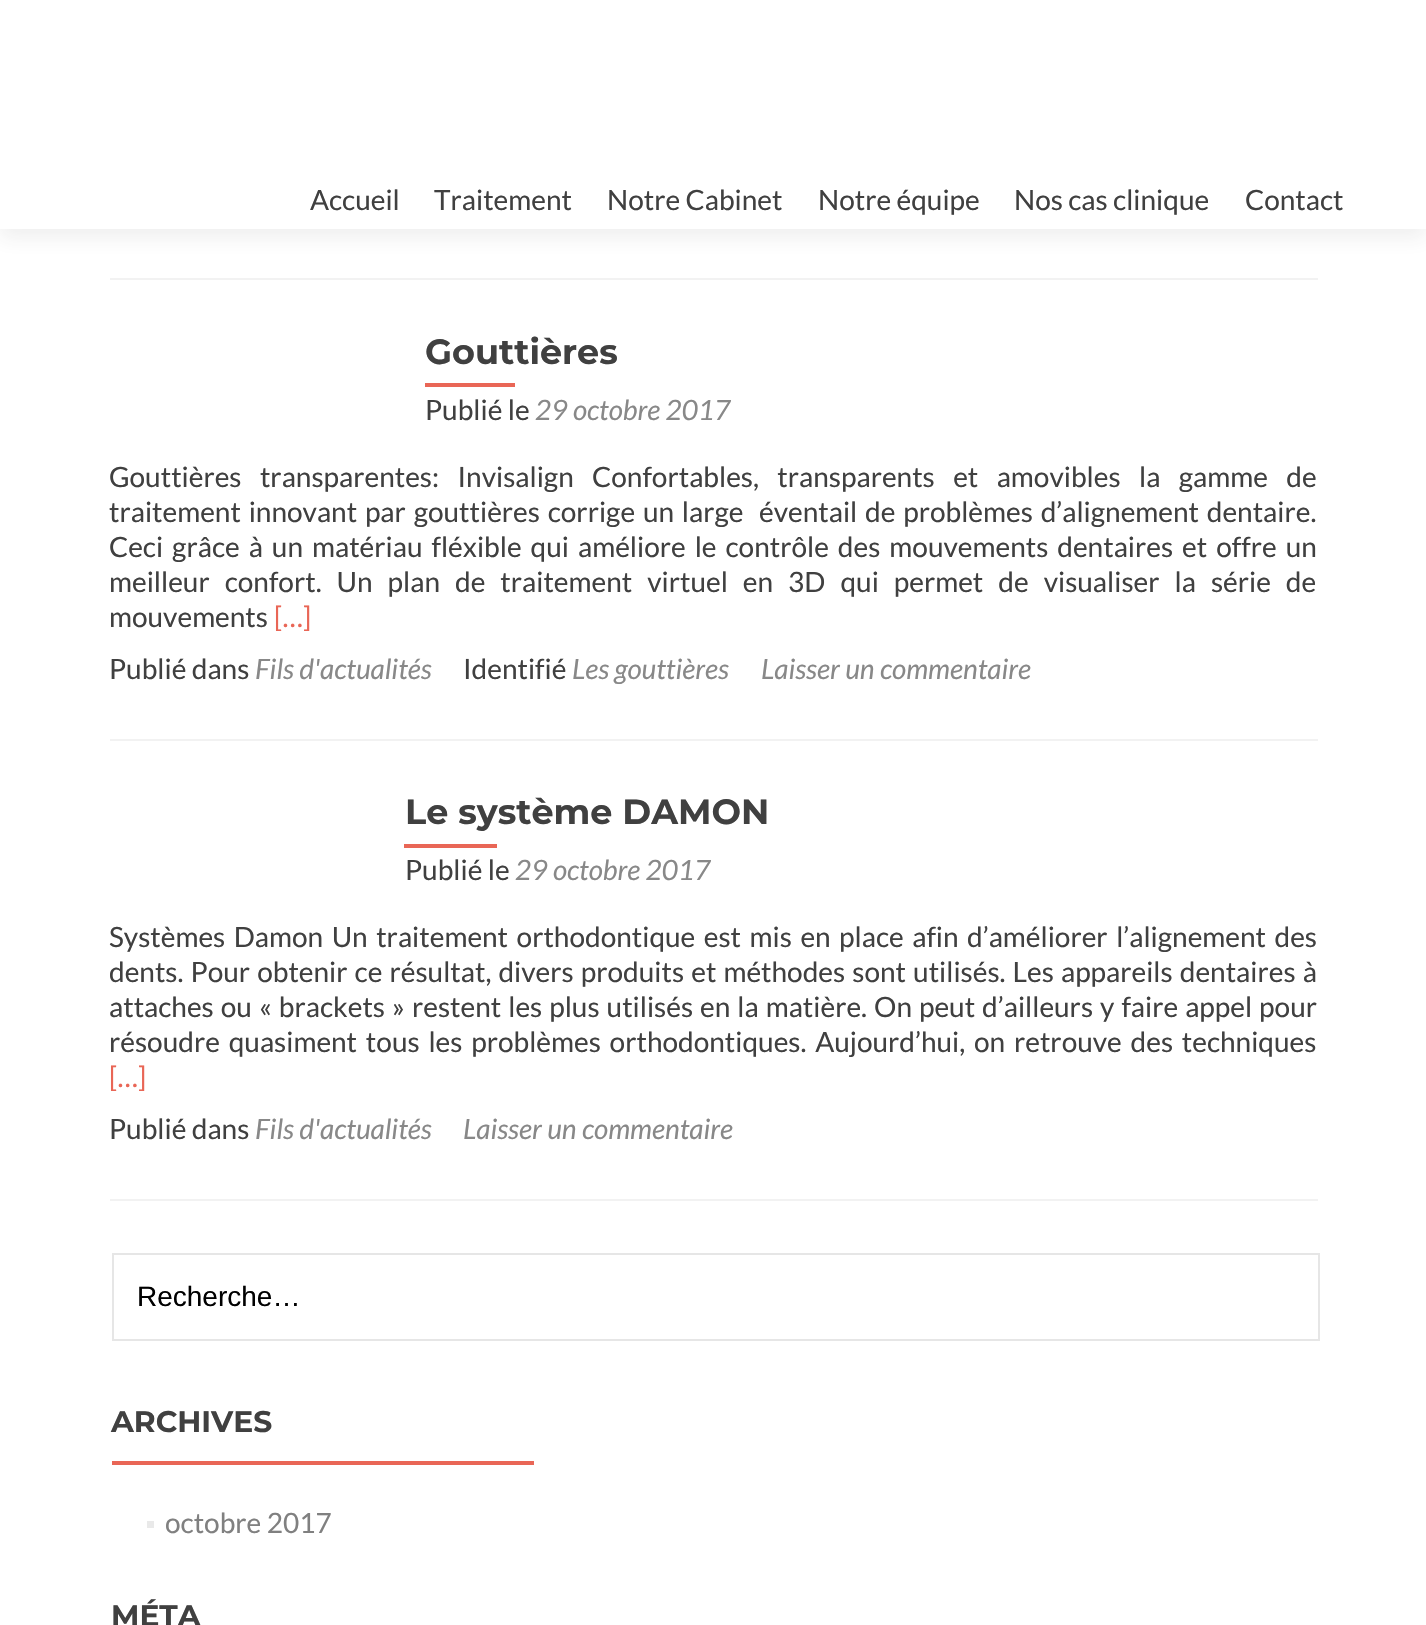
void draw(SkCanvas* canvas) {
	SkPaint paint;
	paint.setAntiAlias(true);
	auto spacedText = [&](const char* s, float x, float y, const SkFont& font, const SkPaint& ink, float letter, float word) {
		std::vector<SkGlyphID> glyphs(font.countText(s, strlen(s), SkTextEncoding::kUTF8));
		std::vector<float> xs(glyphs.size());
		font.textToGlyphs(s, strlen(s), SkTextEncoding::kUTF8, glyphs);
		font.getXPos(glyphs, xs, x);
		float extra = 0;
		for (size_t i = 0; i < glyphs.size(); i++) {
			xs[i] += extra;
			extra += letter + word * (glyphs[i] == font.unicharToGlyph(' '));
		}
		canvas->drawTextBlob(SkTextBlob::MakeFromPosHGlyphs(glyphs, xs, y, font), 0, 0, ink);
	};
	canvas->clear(0xffffffff);
	paint.setColor(0x14323232);
	paint.setMaskFilter(SkMaskFilter::MakeBlur(kNormal_SkBlurStyle, 9.5));
	canvas->drawRect(SkRect::MakeXYWH(0, 9, 1426, 229), paint);
	paint.setMaskFilter(nullptr);
	paint.setColor(0xffffffff);
	canvas->drawRect(SkRect::MakeXYWH(0, 0, 1426, 229), paint);
	SkFont f1(fontMgr->matchFamilyStyle("Lato", SkFontStyle::Normal()), 28);
	f1.setSubpixel(true);
	paint.setColor(0xff404040);
	canvas->drawString("Accueil", 310, 210, f1, paint);
	canvas->drawString("Traitement", 434, 210, f1, paint);
	canvas->drawString("Notre Cabinet", 607, 210, f1, paint);
	canvas->drawString("Notre équipe", 818, 210, f1, paint);
	canvas->drawString("Nos cas clinique", 1014, 210, f1, paint);
	canvas->drawString("Contact", 1245, 210, f1, paint);
	paint.setColor(0xfff2f2f2);
	canvas->drawRect(SkRect::MakeXYWH(110, 278, 1208, 2), paint);
	canvas->drawRect(SkRect::MakeXYWH(110, 739, 1208, 2), paint);
	SkFont f2(fontMgr->matchFamilyStyle("Montserrat", SkFontStyle::Bold()), 35);
	f2.setSubpixel(true);
	paint.setColor(0xff404040);
	canvas->drawString("Gouttières", 425, 364, f2, paint);
	paint.setColor(0xffe96656);
	canvas->drawRect(SkRect::MakeXYWH(425, 383, 90, 4), paint);
	paint.setColor(0xff404040);
	canvas->drawString("Publié le", 425, 420, f1, paint);
	SkFont f3(fontMgr->matchFamilyStyle("Lato", SkFontStyle::Italic()), 28);
	f3.setSubpixel(true);
	paint.setColor(0xff888888);
	canvas->drawString("29 octobre 2017", 535, 420, f3, paint);
	paint.setColor(0xff404040);
	spacedText("Gouttières transparentes: Invisalign Confortables, transparents et amovibles la gamme de", 109, 487, f1, paint, 0, 13);
	spacedText("traitement innovant par gouttières corrige un large  éventail de problèmes d’alignement dentaire.", 109, 522, f1, paint, 0, 2.4);
	spacedText("Ceci grâce à un matériau fléxible qui améliore le contrôle des mouvements dentaires et offre un", 109, 557, f1, paint, 0, 3.6);
	spacedText("meilleur confort. Un plan de traitement virtuel en 3D qui permet de visualiser la série de", 109, 592, f1, paint, 0, 9.6);
	canvas->drawString("mouvements", 109, 627, f1, paint);
	paint.setColor(0xffe96656);
	canvas->drawString("[…]", 274, 627, f1, paint);
	paint.setColor(0xff404040);
	canvas->drawString("Publié dans", 109, 679, f1, paint);
	paint.setColor(0xff888888);
	canvas->drawString("Fils d'actualités", 255, 679, f3, paint);
	paint.setColor(0xff404040);
	canvas->drawString("Identifié", 463, 679, f1, paint);
	paint.setColor(0xff888888);
	canvas->drawString("Les gouttières", 572, 679, f3, paint);
	canvas->drawString("Laisser un commentaire", 761, 679, f3, paint);
	paint.setColor(0xfff2f2f2);
	canvas->drawRect(SkRect::MakeXYWH(110, 1199, 1208, 2), paint);
	paint.setColor(0xff404040);
	canvas->drawString("Le système DAMON", 405, 824, f2, paint);
	paint.setColor(0xffe96656);
	canvas->drawRect(SkRect::MakeXYWH(404, 844, 93, 4), paint);
	paint.setColor(0xff404040);
	canvas->drawString("Publié le", 405, 880, f1, paint);
	paint.setColor(0xff888888);
	canvas->drawString("29 octobre 2017", 515, 880, f3, paint);
	paint.setColor(0xff404040);
	spacedText("Systèmes Damon Un traitement orthodontique est mis en place afin d’améliorer l’alignement des", 109, 947, f1, paint, 0, 3.1);
	spacedText("dents. Pour obtenir ce résultat, divers produits et méthodes sont utilisés. Les appareils dentaires à", 109, 982, f1, paint, 0, 1.7);
	spacedText("attaches ou « brackets » restent les plus utilisés en la matière. On peut d’ailleurs y faire appel pour", 109, 1017, f1, paint, 0, 1.6);
	spacedText("résoudre quasiment tous les problèmes orthodontiques. Aujourd’hui, on retrouve des techniques", 109, 1052, f1, paint, 0, 3.4);
	paint.setColor(0xffe96656);
	canvas->drawString("[…]", 109, 1087, f1, paint);
	paint.setColor(0xff404040);
	canvas->drawString("Publié dans", 109, 1139, f1, paint);
	paint.setColor(0xff888888);
	canvas->drawString("Fils d'actualités", 255, 1139, f3, paint);
	canvas->drawString("Laisser un commentaire", 463, 1139, f3, paint);
	paint.setStroke(true);
	paint.setStrokeWidth(2);
	paint.setColor(0xffe6e6e6);
	canvas->drawRect(SkRect::MakeXYWH(113, 1254, 1206, 86), paint);
	SkFont f4(fontMgr->matchFamilyStyle("Liberation Sans", SkFontStyle::Normal()), 28);
	f4.setSubpixel(true);
	paint.setStroke(false);
	paint.setColor(0xff000000);
	canvas->drawString("Recherche…", 137, 1306, f4, paint);
	SkFont f5(fontMgr->matchFamilyStyle("Montserrat", SkFontStyle::Bold()), 29.75);
	f5.setSubpixel(true);
	paint.setColor(0xff404040);
	canvas->drawString("ARCHIVES", 111, 1432, f5, paint);
	paint.setColor(0xffe96656);
	canvas->drawRect(SkRect::MakeXYWH(112, 1461, 422, 4), paint);
	paint.setColor(0xffe9e9e9);
	canvas->drawRect(SkRect::MakeXYWH(147, 1521, 7, 7), paint);
	paint.setColor(0xff808080);
	canvas->drawString("octobre 2017", 165, 1533, f1, paint);
	paint.setColor(0xff404040);
	canvas->drawString("MÉTA", 111, 1626, f5, paint);
}
